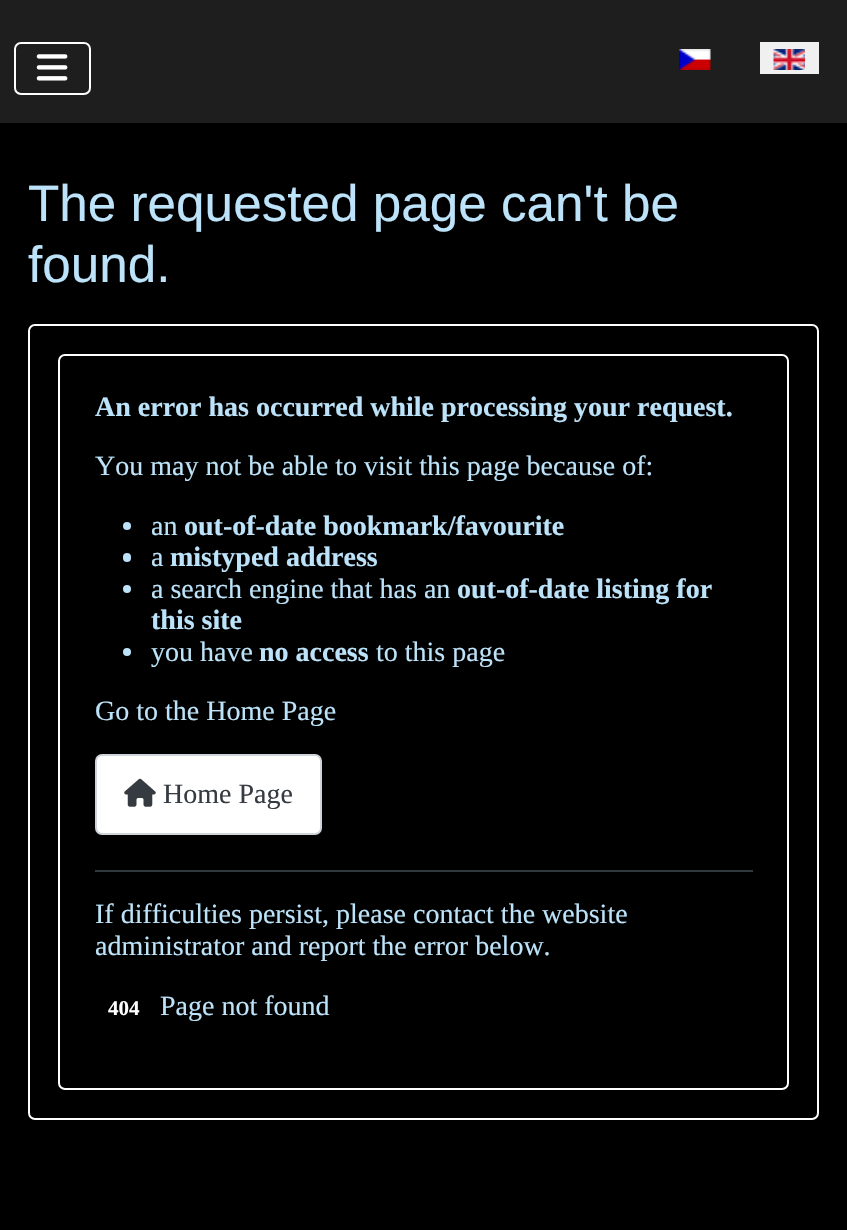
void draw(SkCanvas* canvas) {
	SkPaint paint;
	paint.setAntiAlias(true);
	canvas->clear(0xff000000);
	paint.setColor(0xff1e1e1e);
	canvas->drawRect(SkRect::MakeXYWH(0, 0, 847, 123), paint);
	paint.setStroke(true);
	paint.setStrokeWidth(2);
	paint.setColor(0xffffffff);
	canvas->drawRoundRect(SkRect::MakeXYWH(15, 43, 75, 51), 6, 6, paint);
	canvas->drawImageRect(SkImages::DeferredFromEncodedData(SkData::MakeFromFileName("img1.png")), SkRect::MakeXYWH(36, 54, 32, 27), SkSamplingOptions());
	canvas->drawImageRect(SkImages::DeferredFromEncodedData(SkData::MakeFromFileName("img2.png")), SkRect::MakeXYWH(679, 49, 32, 21), SkSamplingOptions());
	paint.setStroke(false);
	paint.setColor(0xfff0f0f0);
	canvas->drawRect(SkRect::MakeXYWH(760, 42, 59, 32), paint);
	canvas->drawImageRect(SkImages::DeferredFromEncodedData(SkData::MakeFromFileName("img3.png")), SkRect::MakeXYWH(773, 49, 32, 21), SkSamplingOptions());
	SkFont f1(fontMgr->matchFamilyStyle("Liberation Sans", SkFontStyle::Normal()), 51.25);
	f1.setSubpixel(true);
	paint.setColor(0xffbce3f9);
	canvas->drawString("The requested page can't be", 28, 221, f1, paint);
	canvas->drawString("found.", 28, 282, f1, paint);
	paint.setStroke(true);
	paint.setColor(0xffffffff);
	canvas->drawRoundRect(SkRect::MakeXYWH(29, 325, 789, 794), 6, 6, paint);
	canvas->drawRoundRect(SkRect::MakeXYWH(59, 355, 729, 734), 6, 6, paint);
	SkFont f2(fontMgr->matchFamilyStyle("Liberation Serif", SkFontStyle::Bold()), 28);
	f2.setSubpixel(true);
	paint.setStroke(false);
	paint.setColor(0xffbce3f9);
	canvas->drawString("An error has occurred while processing your request.", 95, 416, f2, paint);
	SkFont f3(fontMgr->matchFamilyStyle("Liberation Serif", SkFontStyle::Normal()), 28);
	f3.setSubpixel(true);
	canvas->drawString("You may not be able to visit this page because of:", 95, 475, f3, paint);
	canvas->drawCircle(127, 526, 4, paint);
	canvas->drawString("an", 151, 535, f3, paint);
	canvas->drawString("out-of-date bookmark/favourite", 184, 535, f2, paint);
	canvas->drawRoundRect(SkRect::MakeXYWH(123, 553, 8, 9), 4, 4, paint);
	canvas->drawString("a", 151, 566, f3, paint);
	canvas->drawString("mistyped address", 170, 566, f2, paint);
	canvas->drawCircle(127, 589, 4, paint);
	canvas->drawString("a search engine that has an", 151, 598, f3, paint);
	canvas->drawString("out-of-date listing for", 457, 598, f2, paint);
	canvas->drawString("this site", 151, 629, f2, paint);
	canvas->drawCircle(127, 652, 4, paint);
	canvas->drawString("you have", 151, 661, f3, paint);
	canvas->drawString("no access", 259, 661, f2, paint);
	canvas->drawString("to this page", 376, 661, f3, paint);
	canvas->drawString("Go to the Home Page", 95, 720, f3, paint);
	paint.setColor(0xffffffff);
	canvas->drawRoundRect(SkRect::MakeXYWH(96, 755, 225, 79), 6, 6, paint);
	paint.setStroke(true);
	paint.setColor(0xffced4da);
	canvas->drawRoundRect(SkRect::MakeXYWH(96, 755, 225, 79), 6, 6, paint);
	canvas->drawImageRect(SkImages::DeferredFromEncodedData(SkData::MakeFromFileName("img4.png")), SkRect::MakeXYWH(124, 778, 32, 29), SkSamplingOptions());
	paint.setStroke(false);
	paint.setColor(0xff353b41);
	canvas->drawString("Home Page", 163, 803, f3, paint);
	paint.setColor(0xff2f393e);
	canvas->drawRect(SkRect::MakeXYWH(95, 870, 658, 2), paint);
	paint.setColor(0xffbce3f9);
	canvas->drawString("If difficulties persist, please contact the website", 95, 923, f3, paint);
	canvas->drawString("administrator and report the error below.", 95, 955, f3, paint);
	SkFont f4(fontMgr->matchFamilyStyle("Liberation Serif", SkFontStyle::Bold()), 21);
	f4.setSubpixel(true);
	paint.setColor(0xffffffff);
	canvas->drawString("404", 108, 1015, f4, paint);
	paint.setColor(0xffbce3f9);
	canvas->drawString("Page not found", 160, 1015, f3, paint);
}
